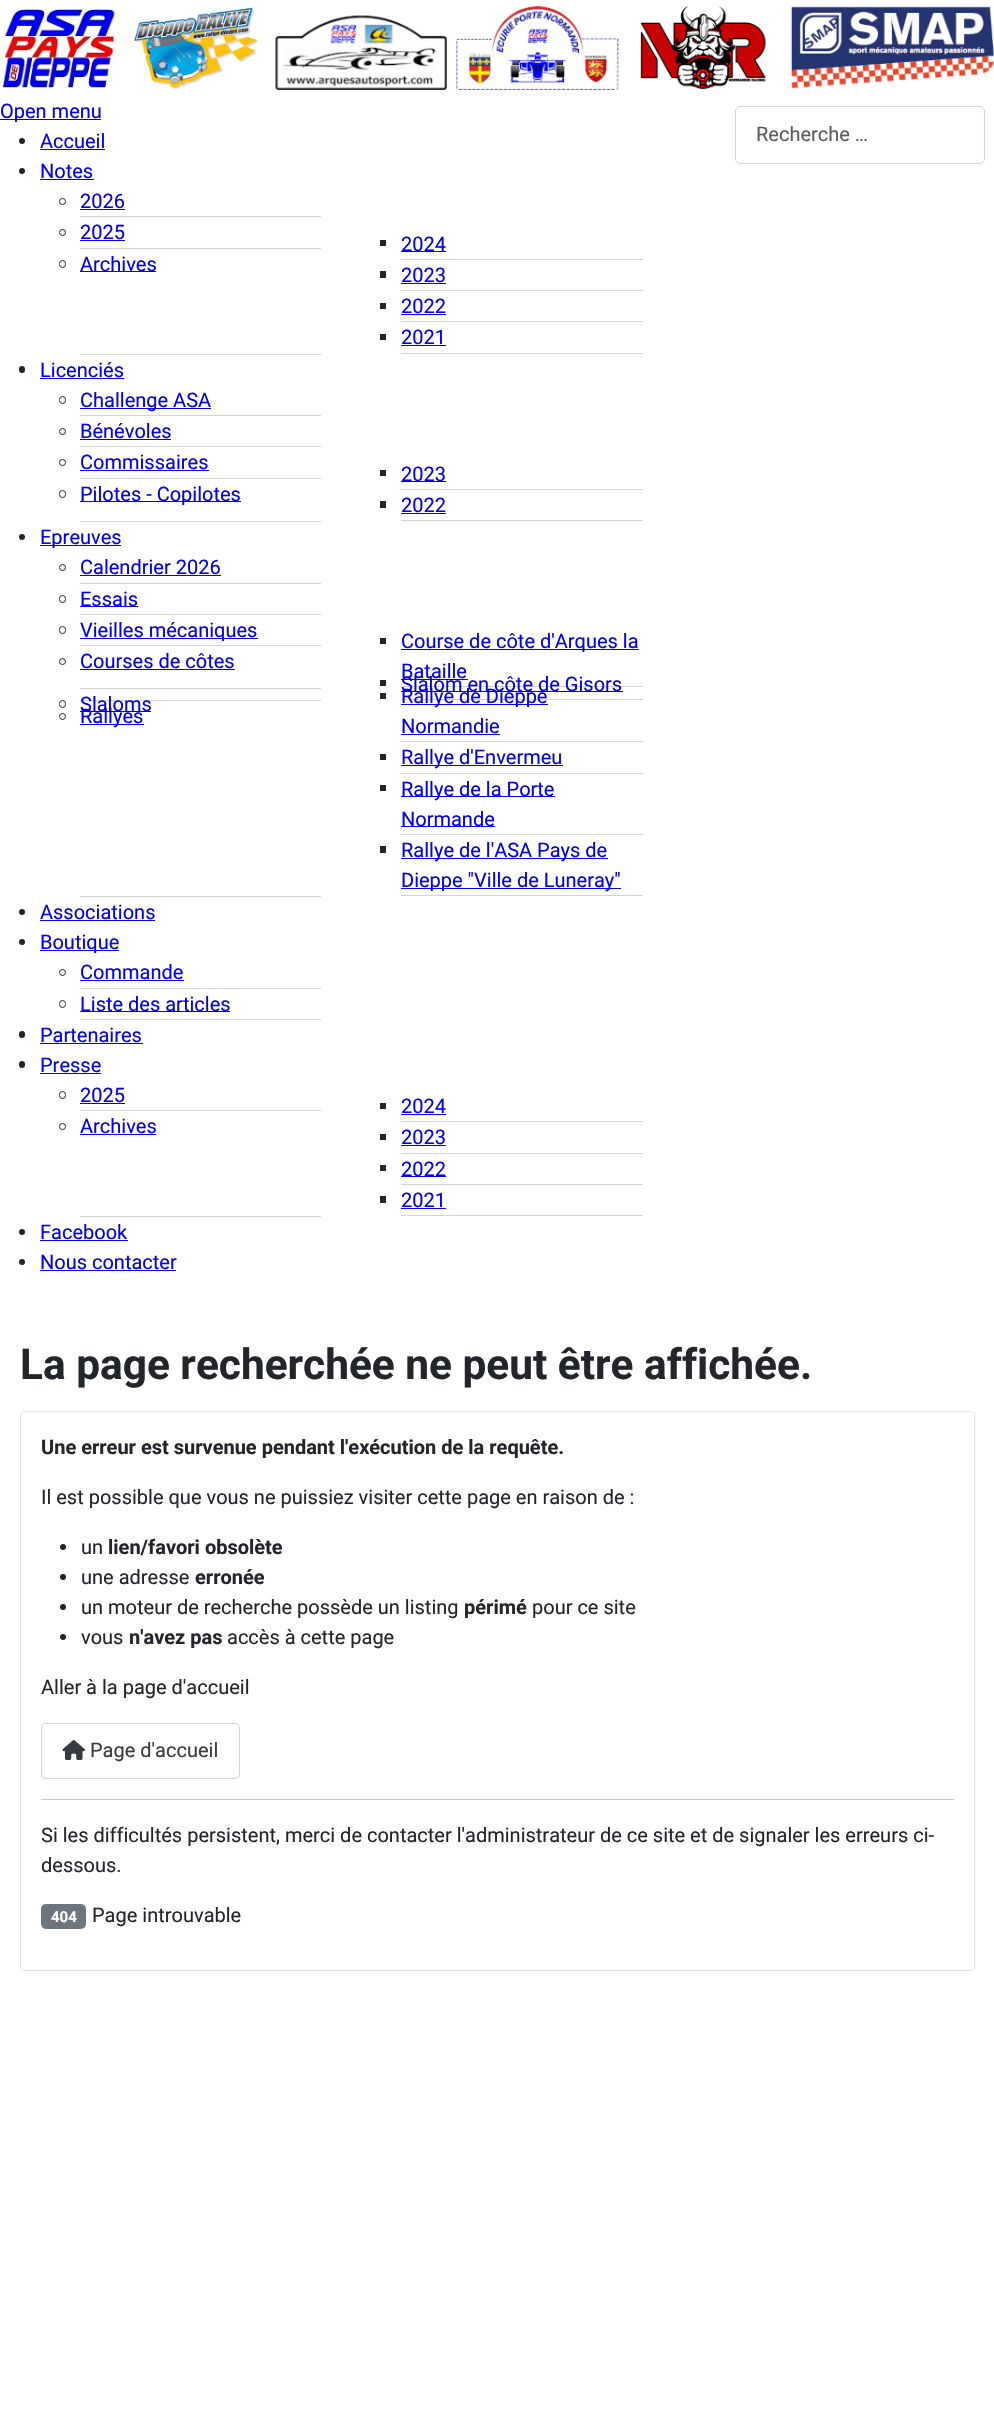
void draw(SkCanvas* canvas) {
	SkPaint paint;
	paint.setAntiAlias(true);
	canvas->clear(0xffffffff);
	canvas->drawImageRect(SkImages::DeferredFromEncodedData(SkData::MakeFromFileName("img1.png")), SkRect::MakeXYWH(0, 6, 994, 84), SkSamplingOptions());
	paint.setColor(0xff0200f7);
	canvas->drawRect(SkRect::MakeXYWH(0, 119, 101, 1), paint);
	SkFont f1(fontMgr->matchFamilyStyle("Roboto", SkFontStyle::Normal()), 20);
	f1.setSubpixel(true);
	canvas->drawString("Open menu", 0, 118, f1, paint);
	paint.setColor(0xff22262a);
	canvas->drawCircle(22, 141, 3, paint);
	paint.setColor(0xff0200f7);
	canvas->drawString("Accueil", 40, 148, f1, paint);
	canvas->drawRect(SkRect::MakeXYWH(40, 149, 65, 1), paint);
	paint.setColor(0xff22262a);
	canvas->drawCircle(22, 171, 3, paint);
	paint.setColor(0xff0200f7);
	canvas->drawString("Notes", 40, 178, f1, paint);
	canvas->drawRect(SkRect::MakeXYWH(40, 179, 54, 1), paint);
	paint.setColor(0xffd3d3d3);
	canvas->drawRect(SkRect::MakeXYWH(80, 216, 241, 1), paint);
	paint.setStroke(true);
	paint.setStrokeWidth(1);
	paint.setColor(0xff22262a);
	canvas->drawCircle(62.5, 201.5, 3, paint);
	paint.setStroke(false);
	paint.setColor(0xff0200f7);
	canvas->drawString("2026", 80, 208, f1, paint);
	canvas->drawRect(SkRect::MakeXYWH(80, 209, 45, 1), paint);
	paint.setColor(0xffd3d3d3);
	canvas->drawRect(SkRect::MakeXYWH(80, 248, 241, 1), paint);
	paint.setStroke(true);
	paint.setColor(0xff22262a);
	canvas->drawCircle(62.5, 232.5, 3, paint);
	paint.setStroke(false);
	paint.setColor(0xff0200f7);
	canvas->drawString("2025", 80, 239, f1, paint);
	canvas->drawRect(SkRect::MakeXYWH(80, 240, 45, 1), paint);
	paint.setColor(0xffd3d3d3);
	canvas->drawRect(SkRect::MakeXYWH(80, 354, 241, 1), paint);
	paint.setStroke(true);
	paint.setColor(0xff22262a);
	canvas->drawRoundRect(SkRect::MakeXYWH(59.5, 260.5, 6, 7), 3, 3, paint);
	paint.setStroke(false);
	paint.setColor(0xff0200f7);
	canvas->drawRect(SkRect::MakeXYWH(80, 271, 76, 1), paint);
	canvas->drawString("Archives", 80, 271, f1, paint);
	paint.setColor(0xffd3d3d3);
	canvas->drawRect(SkRect::MakeXYWH(401, 259, 242, 1), paint);
	paint.setColor(0xff22262a);
	canvas->drawRect(SkRect::MakeXYWH(380, 240, 6, 6), paint);
	paint.setColor(0xff0200f7);
	canvas->drawRect(SkRect::MakeXYWH(401, 251, 45, 1), paint);
	canvas->drawString("2024", 401, 251, f1, paint);
	paint.setColor(0xffd3d3d3);
	canvas->drawRect(SkRect::MakeXYWH(401, 290, 242, 1), paint);
	paint.setColor(0xff22262a);
	canvas->drawRect(SkRect::MakeXYWH(380, 271, 6, 7), paint);
	paint.setColor(0xff0200f7);
	canvas->drawString("2023", 401, 282, f1, paint);
	canvas->drawRect(SkRect::MakeXYWH(401, 283, 45, 1), paint);
	paint.setColor(0xffd3d3d3);
	canvas->drawRect(SkRect::MakeXYWH(401, 321, 242, 1), paint);
	paint.setColor(0xff22262a);
	canvas->drawRect(SkRect::MakeXYWH(380, 303, 6, 6), paint);
	paint.setColor(0xff0200f7);
	canvas->drawString("2022", 401, 313, f1, paint);
	canvas->drawRect(SkRect::MakeXYWH(401, 314, 45, 1), paint);
	paint.setColor(0xffd3d3d3);
	canvas->drawRect(SkRect::MakeXYWH(401, 353, 242, 1), paint);
	paint.setColor(0xff22262a);
	canvas->drawRect(SkRect::MakeXYWH(380, 334, 6, 6), paint);
	paint.setColor(0xff0200f7);
	canvas->drawString("2021", 401, 344, f1, paint);
	canvas->drawRect(SkRect::MakeXYWH(401, 345, 45, 1), paint);
	paint.setColor(0xff22262a);
	canvas->drawRoundRect(SkRect::MakeXYWH(19, 366, 6, 7), 3, 3, paint);
	paint.setColor(0xff0200f7);
	canvas->drawString("Licenciés", 40, 377, f1, paint);
	canvas->drawRect(SkRect::MakeXYWH(40, 378, 84, 1), paint);
	paint.setColor(0xffd3d3d3);
	canvas->drawRect(SkRect::MakeXYWH(80, 415, 241, 1), paint);
	paint.setStroke(true);
	paint.setColor(0xff22262a);
	canvas->drawRoundRect(SkRect::MakeXYWH(59.5, 396.5, 6, 7), 3, 3, paint);
	paint.setStroke(false);
	paint.setColor(0xff0200f7);
	canvas->drawRect(SkRect::MakeXYWH(80, 408, 131, 1), paint);
	canvas->drawString("Challenge ASA", 80, 407, f1, paint);
	paint.setColor(0xffd3d3d3);
	canvas->drawRect(SkRect::MakeXYWH(80, 446, 241, 1), paint);
	paint.setStroke(true);
	paint.setColor(0xff22262a);
	canvas->drawCircle(62.5, 431.5, 3, paint);
	paint.setStroke(false);
	paint.setColor(0xff0200f7);
	canvas->drawString("Bénévoles", 80, 438, f1, paint);
	canvas->drawRect(SkRect::MakeXYWH(80, 439, 91, 1), paint);
	paint.setColor(0xffd3d3d3);
	canvas->drawRect(SkRect::MakeXYWH(80, 478, 241, 1), paint);
	paint.setStroke(true);
	paint.setColor(0xff22262a);
	canvas->drawCircle(62.5, 462.5, 3, paint);
	paint.setStroke(false);
	paint.setColor(0xff0200f7);
	canvas->drawString("Commissaires", 80, 469, f1, paint);
	canvas->drawRect(SkRect::MakeXYWH(80, 470, 129, 1), paint);
	paint.setColor(0xffd3d3d3);
	canvas->drawRect(SkRect::MakeXYWH(80, 521, 241, 1), paint);
	paint.setStroke(true);
	paint.setColor(0xff22262a);
	canvas->drawRoundRect(SkRect::MakeXYWH(59.5, 490.5, 6, 7), 3, 3, paint);
	paint.setStroke(false);
	paint.setColor(0xff0200f7);
	canvas->drawRect(SkRect::MakeXYWH(80, 501, 161, 1), paint);
	canvas->drawString("Pilotes - Copilotes", 80, 501, f1, paint);
	paint.setColor(0xffd3d3d3);
	canvas->drawRect(SkRect::MakeXYWH(401, 489, 242, 1), paint);
	paint.setColor(0xff22262a);
	canvas->drawRect(SkRect::MakeXYWH(380, 470, 6, 6), paint);
	paint.setColor(0xff0200f7);
	canvas->drawRect(SkRect::MakeXYWH(401, 481, 45, 1), paint);
	canvas->drawString("2023", 401, 481, f1, paint);
	paint.setColor(0xffd3d3d3);
	canvas->drawRect(SkRect::MakeXYWH(401, 520, 242, 1), paint);
	paint.setColor(0xff22262a);
	canvas->drawRect(SkRect::MakeXYWH(380, 501, 6, 7), paint);
	paint.setColor(0xff0200f7);
	canvas->drawString("2022", 401, 512, f1, paint);
	canvas->drawRect(SkRect::MakeXYWH(401, 513, 45, 1), paint);
	paint.setColor(0xff22262a);
	canvas->drawCircle(22, 537, 3, paint);
	paint.setColor(0xff0200f7);
	canvas->drawRect(SkRect::MakeXYWH(40, 545, 81, 1), paint);
	canvas->drawString("Epreuves", 40, 544, f1, paint);
	paint.setColor(0xffd3d3d3);
	canvas->drawRect(SkRect::MakeXYWH(80, 583, 241, 1), paint);
	paint.setStroke(true);
	paint.setColor(0xff22262a);
	canvas->drawCircle(62.5, 567.5, 3, paint);
	paint.setStroke(false);
	paint.setColor(0xff0200f7);
	canvas->drawString("Calendrier 2026", 80, 574, f1, paint);
	canvas->drawRect(SkRect::MakeXYWH(80, 575, 141, 1), paint);
	paint.setColor(0xffd3d3d3);
	canvas->drawRect(SkRect::MakeXYWH(80, 614, 241, 1), paint);
	paint.setStroke(true);
	paint.setColor(0xff22262a);
	canvas->drawRoundRect(SkRect::MakeXYWH(59.5, 595.5, 6, 7), 3, 3, paint);
	paint.setStroke(false);
	paint.setColor(0xff0200f7);
	canvas->drawRect(SkRect::MakeXYWH(80, 606, 58, 1), paint);
	canvas->drawString("Essais", 80, 606, f1, paint);
	paint.setColor(0xffd3d3d3);
	canvas->drawRect(SkRect::MakeXYWH(80, 645, 241, 1), paint);
	paint.setStroke(true);
	paint.setColor(0xff22262a);
	canvas->drawRoundRect(SkRect::MakeXYWH(59.5, 626.5, 6, 7), 3, 3, paint);
	paint.setStroke(false);
	paint.setColor(0xff0200f7);
	canvas->drawRect(SkRect::MakeXYWH(80, 638, 178, 1), paint);
	canvas->drawString("Vieilles mécaniques", 80, 637, f1, paint);
	paint.setColor(0xffd3d3d3);
	canvas->drawRect(SkRect::MakeXYWH(80, 688, 241, 1), paint);
	paint.setStroke(true);
	paint.setColor(0xff22262a);
	canvas->drawCircle(62.5, 661.5, 3, paint);
	paint.setStroke(false);
	paint.setColor(0xff0200f7);
	canvas->drawString("Courses de côtes", 80, 668, f1, paint);
	canvas->drawRect(SkRect::MakeXYWH(80, 669, 155, 1), paint);
	paint.setColor(0xffd3d3d3);
	canvas->drawRect(SkRect::MakeXYWH(401, 686, 242, 1), paint);
	paint.setColor(0xff22262a);
	canvas->drawRect(SkRect::MakeXYWH(380, 638, 6, 6), paint);
	paint.setColor(0xff0200f7);
	canvas->drawRect(SkRect::MakeXYWH(401, 649, 238, 1), paint);
	canvas->drawString("Course de côte d'Arques la", 401, 648, f1, paint);
	canvas->drawString("Bataille", 401, 678, f1, paint);
	canvas->drawRect(SkRect::MakeXYWH(401, 679, 67, 1), paint);
	paint.setColor(0xffd3d3d3);
	canvas->drawRect(SkRect::MakeXYWH(80, 700, 241, 1), paint);
	canvas->drawRect(SkRect::MakeXYWH(401, 699, 242, 1), paint);
	paint.setColor(0xff22262a);
	canvas->drawRect(SkRect::MakeXYWH(380, 680, 6, 6), paint);
	paint.setColor(0xff0200f7);
	canvas->drawRect(SkRect::MakeXYWH(401, 691, 222, 1), paint);
	canvas->drawString("Slalom en côte de Gisors", 401, 691, f1, paint);
	paint.setStroke(true);
	paint.setColor(0xff22262a);
	canvas->drawRoundRect(SkRect::MakeXYWH(59.5, 700.5, 6, 7), 3, 3, paint);
	paint.setStroke(false);
	paint.setColor(0xff0200f7);
	canvas->drawRect(SkRect::MakeXYWH(80, 711, 71, 1), paint);
	canvas->drawString("Slaloms", 80, 711, f1, paint);
	paint.setColor(0xffd3d3d3);
	canvas->drawRect(SkRect::MakeXYWH(80, 896, 241, 1), paint);
	paint.setStroke(true);
	paint.setColor(0xff22262a);
	canvas->drawCircle(62.5, 716.5, 3, paint);
	paint.setStroke(false);
	paint.setColor(0xff0200f7);
	canvas->drawRect(SkRect::MakeXYWH(80, 724, 64, 1), paint);
	canvas->drawString("Rallyes", 80, 723, f1, paint);
	paint.setColor(0xffd3d3d3);
	canvas->drawRect(SkRect::MakeXYWH(401, 741, 242, 1), paint);
	paint.setColor(0xff22262a);
	canvas->drawRect(SkRect::MakeXYWH(380, 693, 6, 6), paint);
	paint.setColor(0xff0200f7);
	canvas->drawRect(SkRect::MakeXYWH(401, 704, 147, 1), paint);
	canvas->drawString("Rallye de Dieppe", 401, 703, f1, paint);
	canvas->drawString("Normandie", 401, 733, f1, paint);
	canvas->drawRect(SkRect::MakeXYWH(401, 734, 99, 1), paint);
	paint.setColor(0xffd3d3d3);
	canvas->drawRect(SkRect::MakeXYWH(401, 773, 242, 1), paint);
	paint.setColor(0xff22262a);
	canvas->drawRect(SkRect::MakeXYWH(380, 754, 6, 6), paint);
	paint.setColor(0xff0200f7);
	canvas->drawRect(SkRect::MakeXYWH(401, 765, 162, 1), paint);
	canvas->drawString("Rallye d'Envermeu", 401, 764, f1, paint);
	paint.setColor(0xffd3d3d3);
	canvas->drawRect(SkRect::MakeXYWH(401, 834, 242, 1), paint);
	paint.setColor(0xff22262a);
	canvas->drawRect(SkRect::MakeXYWH(380, 785, 6, 6), paint);
	paint.setColor(0xff0200f7);
	canvas->drawRect(SkRect::MakeXYWH(401, 796, 154, 1), paint);
	canvas->drawString("Rallye de la Porte", 401, 796, f1, paint);
	canvas->drawRect(SkRect::MakeXYWH(401, 826, 94, 1), paint);
	canvas->drawString("Normande", 401, 826, f1, paint);
	paint.setColor(0xffd3d3d3);
	canvas->drawRect(SkRect::MakeXYWH(401, 895, 242, 1), paint);
	paint.setColor(0xff22262a);
	canvas->drawRect(SkRect::MakeXYWH(380, 846, 6, 7), paint);
	paint.setColor(0xff0200f7);
	canvas->drawRect(SkRect::MakeXYWH(401, 858, 207, 1), paint);
	canvas->drawString("Rallye de l'ASA Pays de", 401, 857, f1, paint);
	canvas->drawRect(SkRect::MakeXYWH(401, 888, 220, 1), paint);
	canvas->drawString("Dieppe \"Ville de Luneray\"", 401, 887, f1, paint);
	paint.setColor(0xff22262a);
	canvas->drawCircle(22, 912, 3, paint);
	paint.setColor(0xff0200f7);
	canvas->drawString("Associations", 40, 919, f1, paint);
	canvas->drawRect(SkRect::MakeXYWH(40, 920, 115, 1), paint);
	paint.setColor(0xff22262a);
	canvas->drawCircle(22, 942, 3, paint);
	paint.setColor(0xff0200f7);
	canvas->drawRect(SkRect::MakeXYWH(40, 950, 79, 1), paint);
	canvas->drawString("Boutique", 40, 949, f1, paint);
	paint.setColor(0xffd3d3d3);
	canvas->drawRect(SkRect::MakeXYWH(80, 988, 241, 1), paint);
	paint.setStroke(true);
	paint.setColor(0xff22262a);
	canvas->drawCircle(62.5, 972.5, 3, paint);
	paint.setStroke(false);
	paint.setColor(0xff0200f7);
	canvas->drawString("Commande", 80, 979, f1, paint);
	canvas->drawRect(SkRect::MakeXYWH(80, 980, 104, 1), paint);
	paint.setColor(0xffd3d3d3);
	canvas->drawRect(SkRect::MakeXYWH(80, 1019, 241, 1), paint);
	paint.setStroke(true);
	paint.setColor(0xff22262a);
	canvas->drawRoundRect(SkRect::MakeXYWH(59.5, 1000.5, 6, 7), 3, 3, paint);
	paint.setStroke(false);
	paint.setColor(0xff0200f7);
	canvas->drawRect(SkRect::MakeXYWH(80, 1011, 150, 1), paint);
	canvas->drawString("Liste des articles", 80, 1011, f1, paint);
	paint.setColor(0xff22262a);
	canvas->drawRoundRect(SkRect::MakeXYWH(19, 1031, 6, 7), 3, 3, paint);
	paint.setColor(0xff0200f7);
	canvas->drawString("Partenaires", 40, 1042, f1, paint);
	canvas->drawRect(SkRect::MakeXYWH(40, 1043, 103, 1), paint);
	paint.setColor(0xff22262a);
	canvas->drawRoundRect(SkRect::MakeXYWH(19, 1061, 6, 7), 3, 3, paint);
	paint.setColor(0xff0200f7);
	canvas->drawString("Presse", 40, 1072, f1, paint);
	canvas->drawRect(SkRect::MakeXYWH(40, 1073, 61, 1), paint);
	paint.setColor(0xffd3d3d3);
	canvas->drawRect(SkRect::MakeXYWH(80, 1110, 241, 1), paint);
	paint.setStroke(true);
	paint.setColor(0xff22262a);
	canvas->drawRoundRect(SkRect::MakeXYWH(59.5, 1091.5, 6, 7), 3, 3, paint);
	paint.setStroke(false);
	paint.setColor(0xff0200f7);
	canvas->drawString("2025", 80, 1102, f1, paint);
	canvas->drawRect(SkRect::MakeXYWH(80, 1103, 45, 1), paint);
	paint.setColor(0xffd3d3d3);
	canvas->drawRect(SkRect::MakeXYWH(80, 1216, 241, 1), paint);
	paint.setStroke(true);
	paint.setColor(0xff22262a);
	canvas->drawCircle(62.5, 1126.5, 3, paint);
	paint.setStroke(false);
	paint.setColor(0xff0200f7);
	canvas->drawString("Archives", 80, 1133, f1, paint);
	canvas->drawRect(SkRect::MakeXYWH(80, 1134, 76, 1), paint);
	paint.setColor(0xffd3d3d3);
	canvas->drawRect(SkRect::MakeXYWH(401, 1121, 242, 1), paint);
	paint.setColor(0xff22262a);
	canvas->drawRect(SkRect::MakeXYWH(380, 1103, 6, 6), paint);
	paint.setColor(0xff0200f7);
	canvas->drawString("2024", 401, 1113, f1, paint);
	canvas->drawRect(SkRect::MakeXYWH(401, 1114, 45, 1), paint);
	paint.setColor(0xffd3d3d3);
	canvas->drawRect(SkRect::MakeXYWH(401, 1153, 242, 1), paint);
	paint.setColor(0xff22262a);
	canvas->drawRect(SkRect::MakeXYWH(380, 1134, 6, 6), paint);
	paint.setColor(0xff0200f7);
	canvas->drawString("2023", 401, 1144, f1, paint);
	canvas->drawRect(SkRect::MakeXYWH(401, 1145, 45, 1), paint);
	paint.setColor(0xffd3d3d3);
	canvas->drawRect(SkRect::MakeXYWH(401, 1184, 242, 1), paint);
	paint.setColor(0xff22262a);
	canvas->drawRect(SkRect::MakeXYWH(380, 1165, 6, 6), paint);
	paint.setColor(0xff0200f7);
	canvas->drawRect(SkRect::MakeXYWH(401, 1176, 45, 1), paint);
	canvas->drawString("2022", 401, 1176, f1, paint);
	paint.setColor(0xffd3d3d3);
	canvas->drawRect(SkRect::MakeXYWH(401, 1215, 242, 1), paint);
	paint.setColor(0xff22262a);
	canvas->drawRect(SkRect::MakeXYWH(380, 1196, 6, 7), paint);
	paint.setColor(0xff0200f7);
	canvas->drawString("2021", 401, 1207, f1, paint);
	canvas->drawRect(SkRect::MakeXYWH(401, 1208, 45, 1), paint);
	paint.setColor(0xff22262a);
	canvas->drawCircle(22, 1232, 3, paint);
	paint.setColor(0xff0200f7);
	canvas->drawString("Facebook", 40, 1239, f1, paint);
	canvas->drawRect(SkRect::MakeXYWH(40, 1240, 88, 1), paint);
	paint.setColor(0xff22262a);
	canvas->drawCircle(22, 1262, 3, paint);
	paint.setColor(0xff0200f7);
	canvas->drawString("Nous contacter", 40, 1269, f1, paint);
	canvas->drawRect(SkRect::MakeXYWH(40, 1270, 136, 1), paint);
	paint.setStroke(true);
	paint.setColor(0xffced4da);
	canvas->drawRoundRect(SkRect::MakeXYWH(735.5, 106.5, 249, 57), 4.5, 4.5, paint);
	paint.setStroke(false);
	paint.setColor(0xff595c5f);
	canvas->drawString("Recherche …", 756, 141, f1, paint);
	SkFont f2(fontMgr->matchFamilyStyle("Roboto", SkFontStyle::Bold()), 42.4);
	f2.setSubpixel(true);
	paint.setColor(0xff22262a);
	canvas->drawString("La page recherchée ne peut être affichée.", 20, 1379, f2, paint);
	paint.setStroke(true);
	paint.setColor(0xffdfe3e7);
	canvas->drawRoundRect(SkRect::MakeXYWH(20.5, 1411.5, 954, 559), 4.5, 4.5, paint);
	SkFont f3(fontMgr->matchFamilyStyle("Roboto", SkFontStyle::Bold()), 20);
	f3.setSubpixel(true);
	paint.setStroke(false);
	paint.setColor(0xff22262a);
	canvas->drawString("Une erreur est survenue pendant l'exécution de la requête.", 41, 1454, f3, paint);
	canvas->drawString("Il est possible que vous ne puissiez visiter cette page en raison de :", 41, 1504, f1, paint);
	canvas->drawCircle(63, 1547, 3, paint);
	canvas->drawString("un", 81, 1554, f1, paint);
	canvas->drawString("lien/favori obsolète", 108, 1554, f3, paint);
	canvas->drawCircle(63, 1577, 3, paint);
	canvas->drawString("une adresse", 81, 1584, f1, paint);
	canvas->drawString("erronée", 195, 1584, f3, paint);
	canvas->drawCircle(63, 1607, 3, paint);
	canvas->drawString("un moteur de recherche possède un listing", 81, 1614, f1, paint);
	canvas->drawString("périmé", 464, 1614, f3, paint);
	canvas->drawString("pour ce site", 532, 1614, f1, paint);
	canvas->drawCircle(63, 1637, 3, paint);
	canvas->drawString("vous", 81, 1644, f1, paint);
	canvas->drawString("n'avez pas", 129, 1644, f3, paint);
	canvas->drawString("accès à cette page", 227, 1644, f1, paint);
	canvas->drawString("Aller à la page d'accueil", 41, 1694, f1, paint);
	paint.setStroke(true);
	paint.setColor(0xffced4da);
	canvas->drawRoundRect(SkRect::MakeXYWH(41.5, 1723.5, 198, 55), 4.5, 4.5, paint);
	canvas->drawImageRect(SkImages::DeferredFromEncodedData(SkData::MakeFromFileName("img2.png")), SkRect::MakeXYWH(62, 1740, 23, 20), SkSamplingOptions());
	paint.setStroke(false);
	paint.setColor(0xff353b41);
	canvas->drawString("Page d'accueil", 90, 1757, f1, paint);
	paint.setColor(0xffc8c9ca);
	canvas->drawRect(SkRect::MakeXYWH(41, 1799, 913, 1), paint);
	paint.setColor(0xff22262a);
	canvas->drawString("Si les difficultés persistent, merci de contacter l'administrateur de ce site et de signaler les erreurs ci-", 41, 1842, f1, paint);
	canvas->drawString("dessous.", 41, 1872, f1, paint);
	paint.setColor(0xff6d757e);
	canvas->drawRoundRect(SkRect::MakeXYWH(41, 1904, 45, 25), 5, 5, paint);
	SkFont f4(fontMgr->matchFamilyStyle("Roboto", SkFontStyle::Bold()), 15);
	f4.setSubpixel(true);
	paint.setColor(0xffffffff);
	canvas->drawString("404", 51, 1922, f4, paint);
	paint.setColor(0xff22262a);
	canvas->drawString("Page introuvable", 92, 1922, f1, paint);
}
